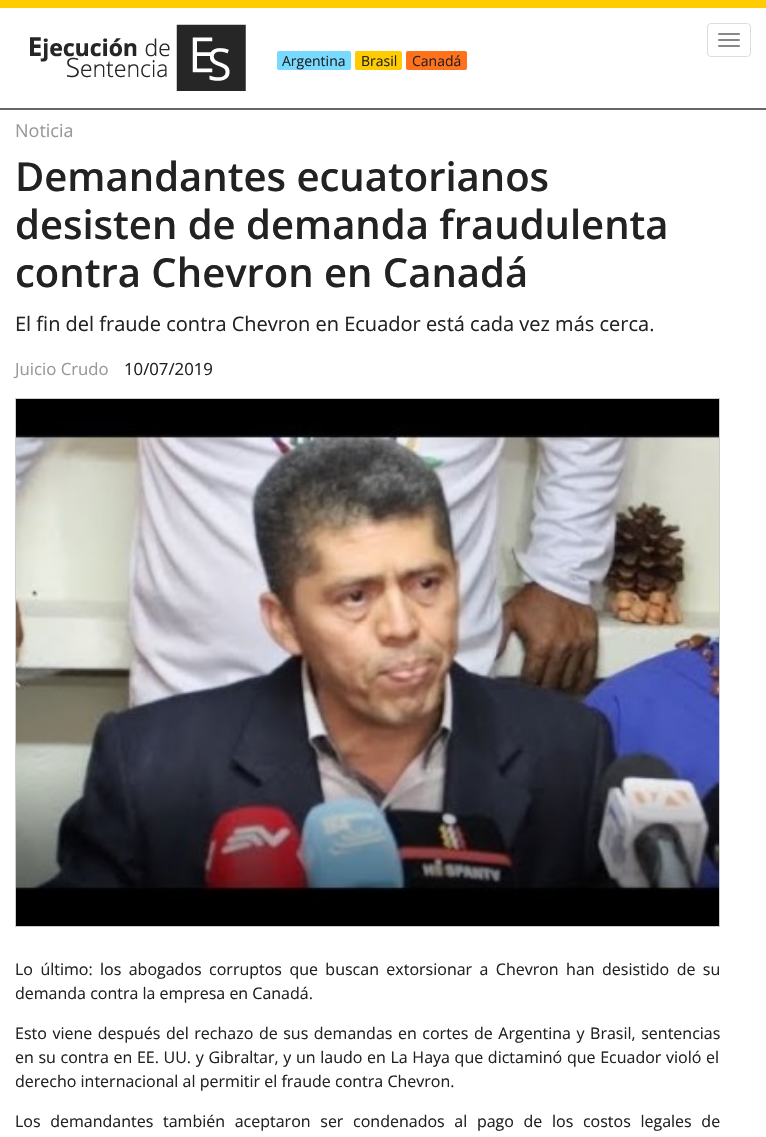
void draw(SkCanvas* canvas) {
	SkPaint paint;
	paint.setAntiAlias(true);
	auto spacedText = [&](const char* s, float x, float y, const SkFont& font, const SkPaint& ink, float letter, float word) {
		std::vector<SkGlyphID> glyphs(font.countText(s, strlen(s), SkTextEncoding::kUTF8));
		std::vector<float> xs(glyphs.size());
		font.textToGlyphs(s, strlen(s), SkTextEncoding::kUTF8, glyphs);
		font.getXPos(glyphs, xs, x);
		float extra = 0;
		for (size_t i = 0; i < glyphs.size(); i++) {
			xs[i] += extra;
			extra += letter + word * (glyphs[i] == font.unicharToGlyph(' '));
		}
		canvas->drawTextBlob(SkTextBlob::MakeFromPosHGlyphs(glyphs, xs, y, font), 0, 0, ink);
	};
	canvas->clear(0xffffffff);
	paint.setColor(0xffffcc00);
	canvas->drawRect(SkRect::MakeXYWH(0, 0, 766, 8), paint);
	paint.setColor(0xff666666);
	canvas->drawRect(SkRect::MakeXYWH(0, 108, 766, 2), paint);
	canvas->drawImageRect(SkImages::DeferredFromEncodedData(SkData::MakeFromFileName("img1.png")), SkRect::MakeXYWH(30, 24, 216, 67), SkSamplingOptions());
	paint.setColor(0xff78daff);
	canvas->drawRoundRect(SkRect::MakeXYWH(277, 51, 74, 19), 2, 2, paint);
	SkFont f1(fontMgr->matchFamilyStyle("Open Sans", SkFontStyle::Normal()), 14);
	f1.setSubpixel(true);
	paint.setColor(0xff222222);
	canvas->drawString("Argentina", 282, 66, f1, paint);
	paint.setColor(0xffffcc00);
	canvas->drawRoundRect(SkRect::MakeXYWH(355, 51, 47, 19), 2, 2, paint);
	paint.setColor(0xff222222);
	canvas->drawString("Brasil", 361, 66, f1, paint);
	paint.setColor(0xffff711b);
	canvas->drawRoundRect(SkRect::MakeXYWH(406, 51, 61, 19), 2, 2, paint);
	paint.setColor(0xff222222);
	canvas->drawString("Canadá", 412, 66, f1, paint);
	paint.setStroke(true);
	paint.setStrokeWidth(1);
	paint.setColor(0xffdddddd);
	canvas->drawRoundRect(SkRect::MakeXYWH(707.5, 23.5, 43, 33), 3.5, 3.5, paint);
	paint.setStroke(false);
	paint.setColor(0xff888888);
	canvas->drawRoundRect(SkRect::MakeXYWH(718, 33, 22, 2), 1, 1, paint);
	canvas->drawRoundRect(SkRect::MakeXYWH(718, 39, 22, 2), 1, 1, paint);
	canvas->drawRoundRect(SkRect::MakeXYWH(718, 45, 22, 2), 1, 1, paint);
	SkFont f2(fontMgr->matchFamilyStyle("Open Sans", SkFontStyle::Normal()), 18);
	f2.setSubpixel(true);
	paint.setColor(0xff999999);
	canvas->drawString("Noticia", 15, 137, f2, paint);
	SkFont f3(fontMgr->matchFamilyStyle("Open Sans", SkFontStyle(600, SkFontStyle::kNormal_Width, SkFontStyle::kUpright_Slant)), 40);
	f3.setSubpixel(true);
	paint.setColor(0xff222222);
	canvas->drawString("Demandantes ecuatorianos", 15, 191, f3, paint);
	canvas->drawString("desisten de demanda fraudulenta", 15, 239, f3, paint);
	canvas->drawString("contra Chevron en Canadá", 15, 287, f3, paint);
	SkFont f4(fontMgr->matchFamilyStyle("Open Sans", SkFontStyle::Normal()), 20);
	f4.setSubpixel(true);
	canvas->drawString("El fin del fraude contra Chevron en Ecuador está cada vez más cerca.", 15, 331, f4, paint);
	SkFont f5(fontMgr->matchFamilyStyle("Open Sans", SkFontStyle::Normal()), 16.75);
	f5.setSubpixel(true);
	paint.setColor(0xff999999);
	canvas->drawString("Juicio Crudo", 15, 375, f5, paint);
	paint.setColor(0xff222222);
	canvas->drawString("10/07/2019", 124, 375, f5, paint);
	paint.setStroke(true);
	paint.setColor(0xffcccccc);
	canvas->drawRect(SkRect::MakeXYWH(15.5, 398.5, 704, 528), paint);
	canvas->drawImageRect(SkImages::DeferredFromEncodedData(SkData::MakeFromFileName("img2.png")), SkRect::MakeXYWH(16, 399, 703, 527), SkSamplingOptions());
	SkFont f6(fontMgr->matchFamilyStyle("Open Sans", SkFontStyle::Normal()), 16);
	f6.setSubpixel(true);
	paint.setStroke(false);
	paint.setColor(0xff222222);
	spacedText("Lo último: los abogados corruptos que buscan extorsionar a Chevron han desistido de su", 15, 975, f6, paint, 0, 3.25);
	canvas->drawString("demanda contra la empresa en Canadá.", 15, 999, f6, paint);
	spacedText("Esto viene después del rechazo de sus demandas en cortes de Argentina y Brasil, sentencias", 15, 1039, f6, paint, 0, 1.4);
	spacedText("en su contra en EE. UU. y Gibraltar, y un laudo en La Haya que dictaminó que Ecuador violó el", 15, 1063, f6, paint, 0, 0.5);
	canvas->drawString("derecho internacional al permitir el fraude contra Chevron.", 15, 1087, f6, paint);
	spacedText("Los demandantes también aceptaron ser condenados al pago de los costos legales de", 15, 1127, f6, paint, 0, 5.5);
}
